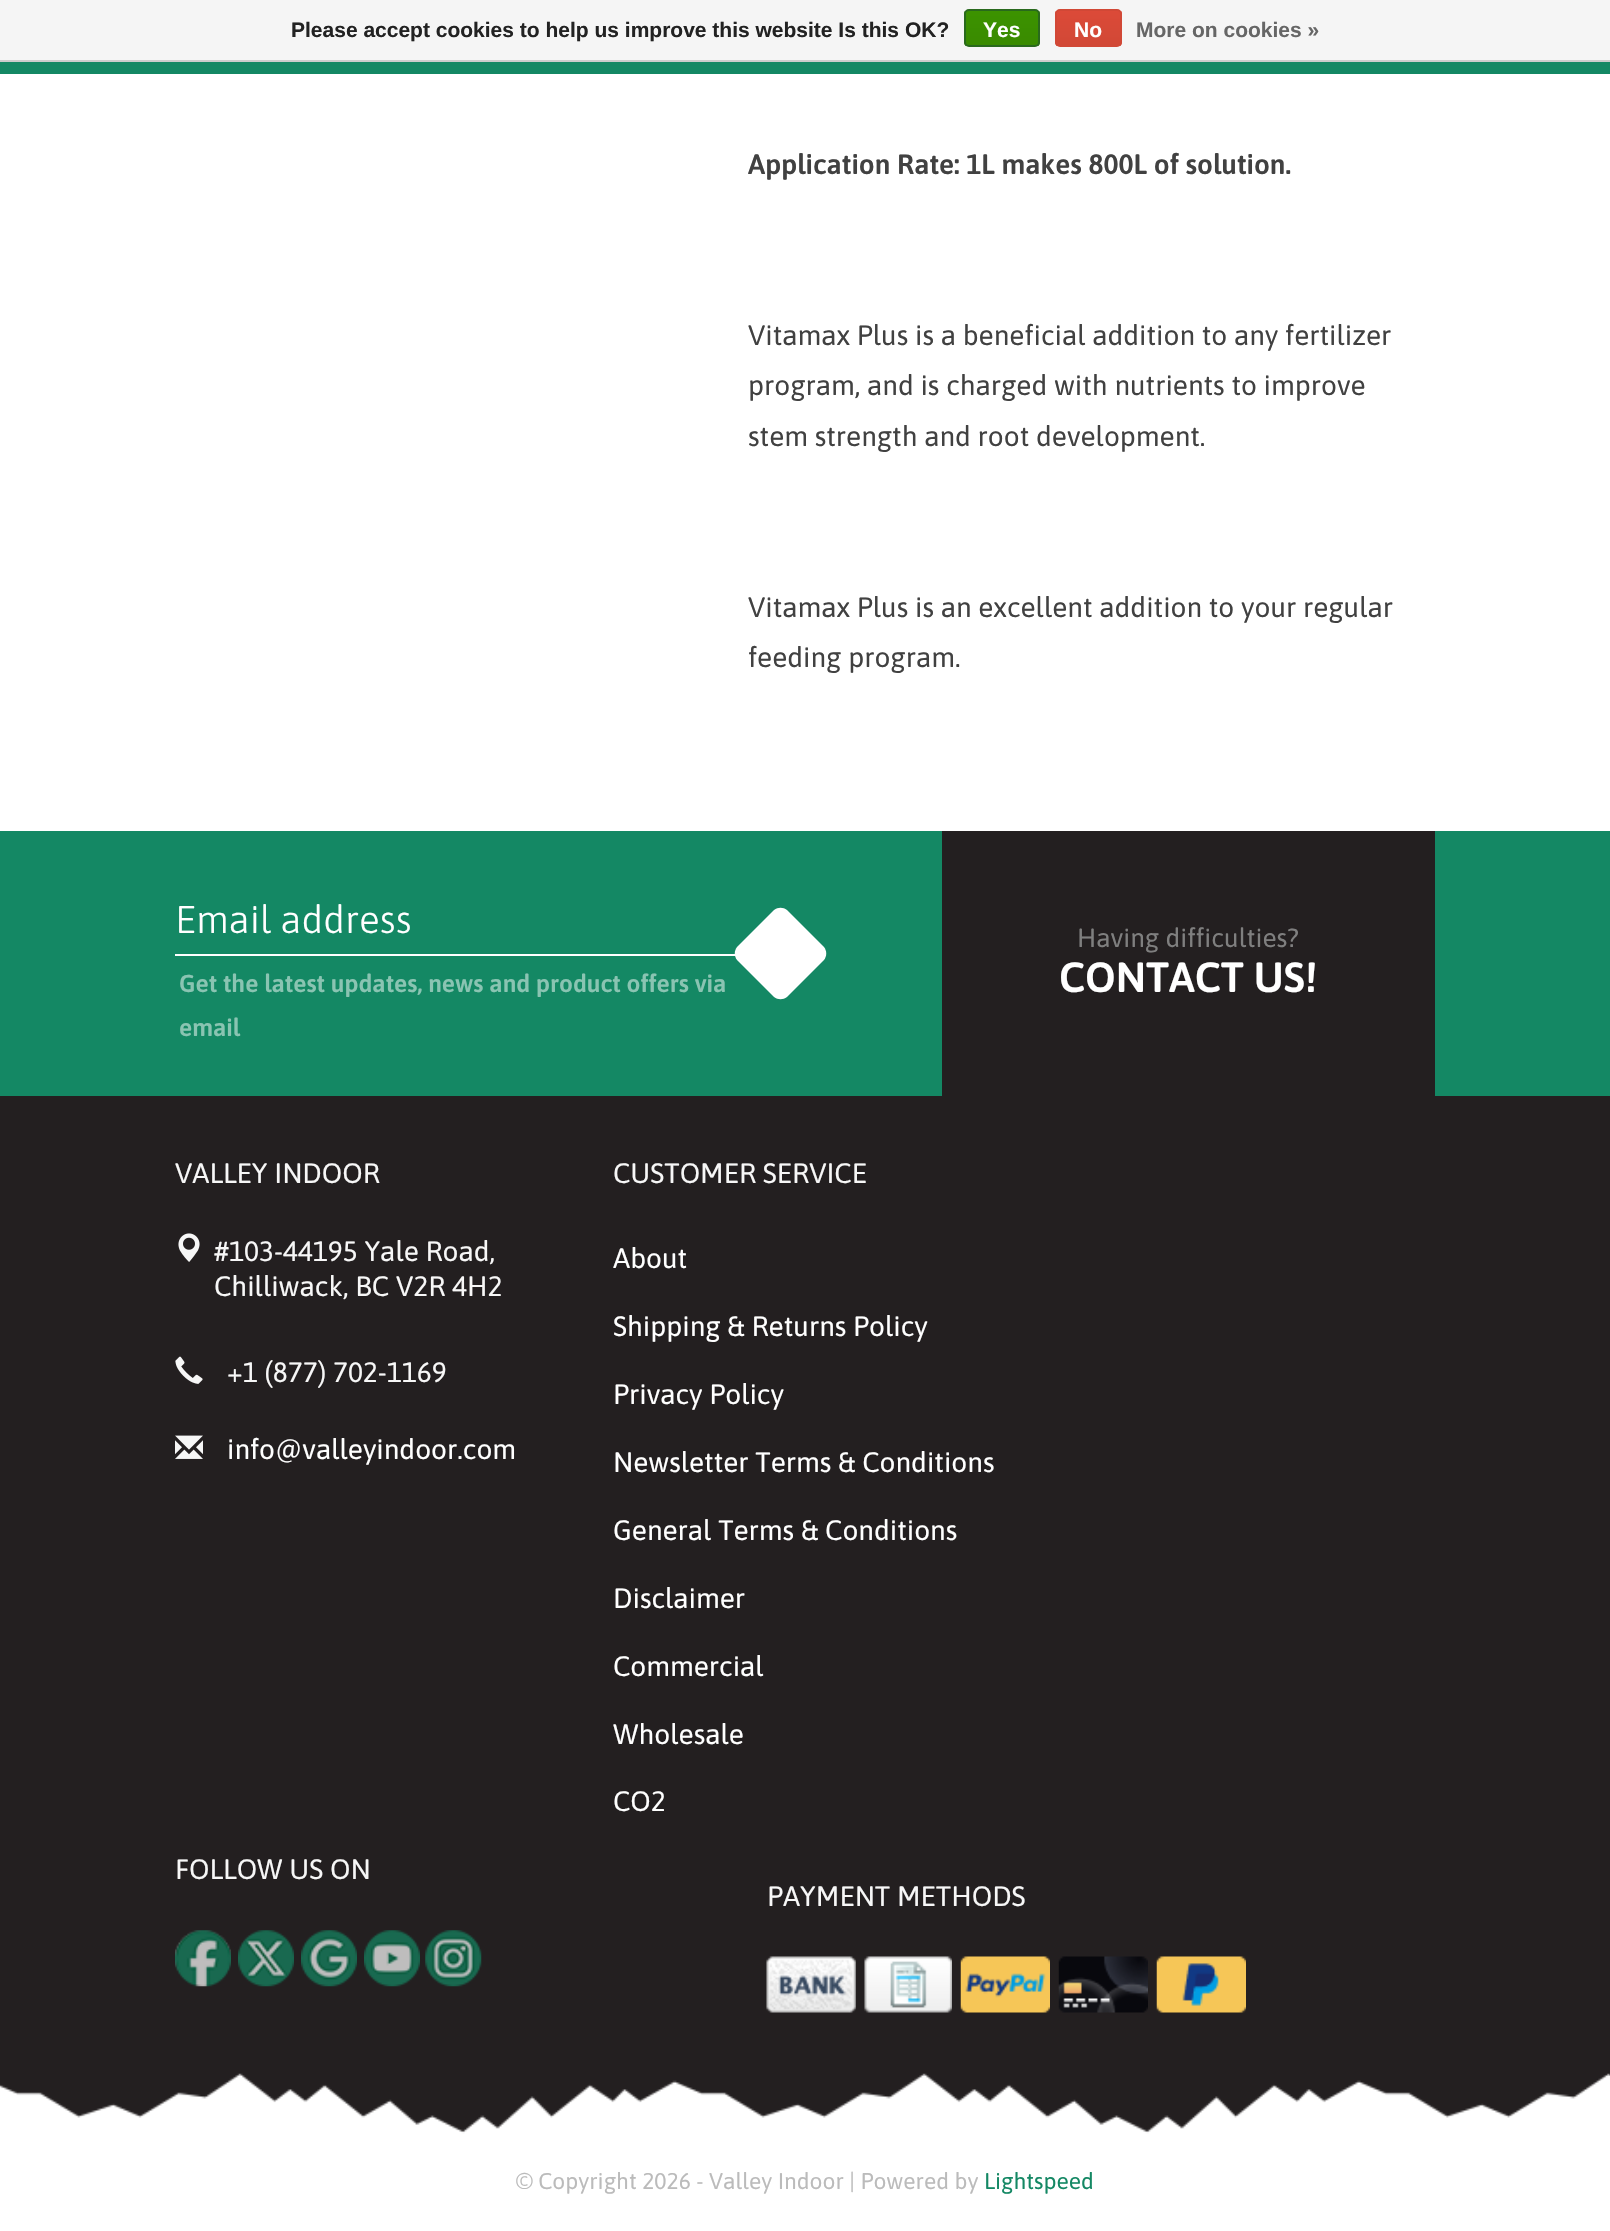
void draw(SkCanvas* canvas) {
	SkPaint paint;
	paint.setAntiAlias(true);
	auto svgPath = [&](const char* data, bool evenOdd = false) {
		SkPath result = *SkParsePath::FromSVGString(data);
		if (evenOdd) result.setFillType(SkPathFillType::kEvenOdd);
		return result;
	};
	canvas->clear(0xffffffff);
	paint.setColor(0xfff5f5f5);
	canvas->drawRect(SkRect::MakeXYWH(0, 0, 1610, 60), paint);
	paint.setColor(0xffcccccc);
	canvas->drawRect(SkRect::MakeXYWH(0, 60, 1610, 2), paint);
	SkFont f1(fontMgr->matchFamilyStyle("Liberation Sans", SkFontStyle::Bold()), 21);
	f1.setSubpixel(true);
	paint.setColor(0xff222222);
	canvas->drawString("Please accept cookies to help us improve this website Is this OK?", 291, 37, f1, paint);
	canvas->save();
	canvas->clipPath(svgPath("M969 9H1035C1038 9 1040 11 1040 14V42C1040 45 1038 47 1035 47H969C966 47 964 45 964 42V14C964 11 966 9 969 9Z"), true);
	{
		const SkColor colors[] = {0xff3c9300, 0xff398a00};
		const float stops[] = {0, 1};
		const SkPoint ends[] = {{1002, 10}, {1002, 46}};
		paint.setShader(SkGradientShader::MakeLinear(ends, colors, stops, 2, SkTileMode::kClamp));
		paint.setAlpha(255);
	}
	canvas->drawRect(SkRect::MakeXYWH(964, 11, 76, 35), paint);
	canvas->restore();
	paint.setStroke(true);
	paint.setStrokeWidth(2);
	paint.setShader(nullptr);
	paint.setColor(0xff29691d);
	canvas->drawRoundRect(SkRect::MakeXYWH(965, 10, 74, 36), 4, 4, paint);
	paint.setStroke(false);
	paint.setColor(0xffffffff);
	canvas->drawString("Yes", 983, 37, f1, paint);
	canvas->save();
	canvas->clipPath(svgPath("M1060 9H1117C1120 9 1122 11 1122 14V42C1122 45 1120 47 1117 47H1060C1057 47 1055 45 1055 42V14C1055 11 1057 9 1060 9Z"), true);
	{
		const SkColor colors[] = {0xffdc4a38, 0xffd14836};
		const float stops[] = {0, 1};
		const SkPoint ends[] = {{1089, 10}, {1089, 46}};
		paint.setShader(SkGradientShader::MakeLinear(ends, colors, stops, 2, SkTileMode::kClamp));
		paint.setAlpha(255);
	}
	canvas->drawRect(SkRect::MakeXYWH(1055, 11, 67, 35), paint);
	canvas->restore();
	paint.setStroke(true);
	paint.setShader(nullptr);
	paint.setColor(0xffd14836);
	canvas->drawRoundRect(SkRect::MakeXYWH(1056, 10, 65, 36), 4, 4, paint);
	paint.setStroke(false);
	paint.setColor(0xffffffff);
	canvas->drawString("No", 1074, 37, f1, paint);
	paint.setColor(0xff666666);
	canvas->drawString("More on cookies »", 1136, 37, f1, paint);
	paint.setColor(0xff148864);
	canvas->drawRect(SkRect::MakeXYWH(0, 62, 1610, 12), paint);
	SkFont f2(fontMgr->matchFamilyStyle("Asap", SkFontStyle(600, SkFontStyle::kNormal_Width, SkFontStyle::kUpright_Slant)), 28);
	f2.setSubpixel(true);
	paint.setColor(0xff414141);
	canvas->drawString("Application Rate: 1L makes 800L of solution.", 748, 174, f2, paint);
	SkFont f3(fontMgr->matchFamilyStyle("Asap", SkFontStyle::Normal()), 28);
	f3.setSubpixel(true);
	canvas->drawString("Vitamax Plus is a beneficial addition to any fertilizer", 748, 345, f3, paint);
	canvas->drawString("program, and is charged with nutrients to improve", 748, 395, f3, paint);
	canvas->drawString("stem strength and root development.", 748, 446, f3, paint);
	canvas->drawString("Vitamax Plus is an excellent addition to your regular", 748, 617, f3, paint);
	canvas->drawString("feeding program.", 748, 667, f3, paint);
	paint.setColor(0xff231f20);
	canvas->drawRect(SkRect::MakeXYWH(0, 1096, 1610, 1038), paint);
	paint.setColor(0xff148864);
	canvas->drawRect(SkRect::MakeXYWH(0, 831, 1610, 265), paint);
	paint.setColor(0xffffffff);
	canvas->drawRect(SkRect::MakeXYWH(175, 954, 561, 2), paint);
	SkFont f4(fontMgr->matchFamilyStyle("Asap", SkFontStyle(300, SkFontStyle::kNormal_Width, SkFontStyle::kUpright_Slant)), 38.5);
	f4.setSubpixel(true);
	canvas->drawString("Email address", 175, 933, f4, paint);
	canvas->drawPath(svgPath("M787 910L824 947C827 951 827 956 824 960L787 997C783 1000 778 1000 774 997L737 960C734 956 734 951 737 947L774 910C778 907 783 907 787 910Z"), paint);
	SkFont f5(fontMgr->matchFamilyStyle("Asap", SkFontStyle(600, SkFontStyle::kNormal_Width, SkFontStyle::kUpright_Slant)), 24.5);
	f5.setSubpixel(true);
	paint.setColor(0xff8ac4b2);
	canvas->drawString("Get the latest updates, news and product offers via", 179, 992, f5, paint);
	canvas->drawString("email", 179, 1036, f5, paint);
	paint.setColor(0xff231f20);
	canvas->drawRect(SkRect::MakeXYWH(942, 831, 493, 265), paint);
	SkFont f6(fontMgr->matchFamilyStyle("Asap", SkFontStyle::Normal()), 26.25);
	f6.setSubpixel(true);
	paint.setColor(0xff7f7f7f);
	canvas->drawString("Having difficulties?", 1077, 947, f6, paint);
	SkFont f7(fontMgr->matchFamilyStyle("Asap", SkFontStyle(600, SkFontStyle::kNormal_Width, SkFontStyle::kUpright_Slant)), 42);
	f7.setSubpixel(true);
	paint.setColor(0xffffffff);
	canvas->drawString("CONTACT US!", 1059, 992, f7, paint);
	paint.setColor(0xfff7f7f7);
	canvas->drawString("VALLEY INDOOR", 175, 1183, f3, paint);
	canvas->drawImageRect(SkImages::DeferredFromEncodedData(SkData::MakeFromFileName("img1.png")), SkRect::MakeXYWH(178, 1233, 22, 29), SkSamplingOptions());
	canvas->drawString("#103-44195 Yale Road,", 214, 1261, f3, paint);
	canvas->drawString("Chilliwack, BC V2R 4H2", 214, 1296, f3, paint);
	canvas->drawImageRect(SkImages::DeferredFromEncodedData(SkData::MakeFromFileName("img2.png")), SkRect::MakeXYWH(175, 1356, 28, 28), SkSamplingOptions());
	canvas->drawString("+1 (877) 702-1169", 227, 1382, f3, paint);
	canvas->drawImageRect(SkImages::DeferredFromEncodedData(SkData::MakeFromFileName("img3.png")), SkRect::MakeXYWH(175, 1435, 28, 24), SkSamplingOptions());
	paint.setColor(0xffffffff);
	canvas->drawString("info@valleyindoor.com", 227, 1459, f3, paint);
	paint.setColor(0xfff7f7f7);
	canvas->drawString("CUSTOMER SERVICE", 613, 1183, f3, paint);
	paint.setColor(0xffffffff);
	canvas->drawString("About", 613, 1268, f3, paint);
	canvas->drawString("Shipping & Returns Policy", 613, 1336, f3, paint);
	canvas->drawString("Privacy Policy", 613, 1404, f3, paint);
	canvas->drawString("Newsletter Terms & Conditions", 613, 1472, f3, paint);
	canvas->drawString("General Terms & Conditions", 613, 1540, f3, paint);
	canvas->drawString("Disclaimer", 613, 1608, f3, paint);
	canvas->drawString("Commercial", 613, 1676, f3, paint);
	canvas->drawString("Wholesale", 613, 1744, f3, paint);
	canvas->drawString("CO2", 613, 1811, f3, paint);
	paint.setColor(0xfff7f7f7);
	canvas->drawString("FOLLOW US ON", 175, 1879, f3, paint);
	canvas->drawImageRect(SkImages::DeferredFromEncodedData(SkData::MakeFromFileName("img4.png")), SkRect::MakeXYWH(175, 1930, 56, 57), SkSamplingOptions());
	canvas->drawImageRect(SkImages::DeferredFromEncodedData(SkData::MakeFromFileName("img5.png")), SkRect::MakeXYWH(238, 1930, 56, 57), SkSamplingOptions());
	canvas->drawImageRect(SkImages::DeferredFromEncodedData(SkData::MakeFromFileName("img6.png")), SkRect::MakeXYWH(301, 1930, 56, 57), SkSamplingOptions());
	canvas->drawImageRect(SkImages::DeferredFromEncodedData(SkData::MakeFromFileName("img7.png")), SkRect::MakeXYWH(364, 1930, 56, 57), SkSamplingOptions());
	canvas->drawImageRect(SkImages::DeferredFromEncodedData(SkData::MakeFromFileName("img8.png")), SkRect::MakeXYWH(425, 1930, 57, 57), SkSamplingOptions());
	canvas->drawString("PAYMENT METHODS", 767, 1906, f3, paint);
	canvas->drawImageRect(SkImages::DeferredFromEncodedData(SkData::MakeFromFileName("img9.png")), SkRect::MakeXYWH(766, 1956, 90, 57), SkSamplingOptions());
	canvas->drawImageRect(SkImages::DeferredFromEncodedData(SkData::MakeFromFileName("img10.png")), SkRect::MakeXYWH(864, 1956, 88, 57), SkSamplingOptions());
	canvas->drawImageRect(SkImages::DeferredFromEncodedData(SkData::MakeFromFileName("img11.png")), SkRect::MakeXYWH(960, 1956, 90, 57), SkSamplingOptions());
	canvas->drawImageRect(SkImages::DeferredFromEncodedData(SkData::MakeFromFileName("img12.png")), SkRect::MakeXYWH(1058, 1956, 90, 57), SkSamplingOptions());
	canvas->drawImageRect(SkImages::DeferredFromEncodedData(SkData::MakeFromFileName("img13.png")), SkRect::MakeXYWH(1156, 1956, 90, 57), SkSamplingOptions());
	canvas->drawImageRect(SkImages::DeferredFromEncodedData(SkData::MakeFromFileName("img14.png")), SkRect::MakeXYWH(0, 2073, 1610, 158), SkSamplingOptions());
	SkFont f8(fontMgr->matchFamilyStyle("Asap", SkFontStyle::Normal()), 22.75);
	f8.setSubpixel(true);
	paint.setColor(0xffbbbbbb);
	canvas->drawString("© Copyright 2026 - Valley Indoor | Powered by", 516, 2189, f8, paint);
	paint.setColor(0xff148864);
	canvas->drawString("Lightspeed", 984, 2189, f8, paint);
}
